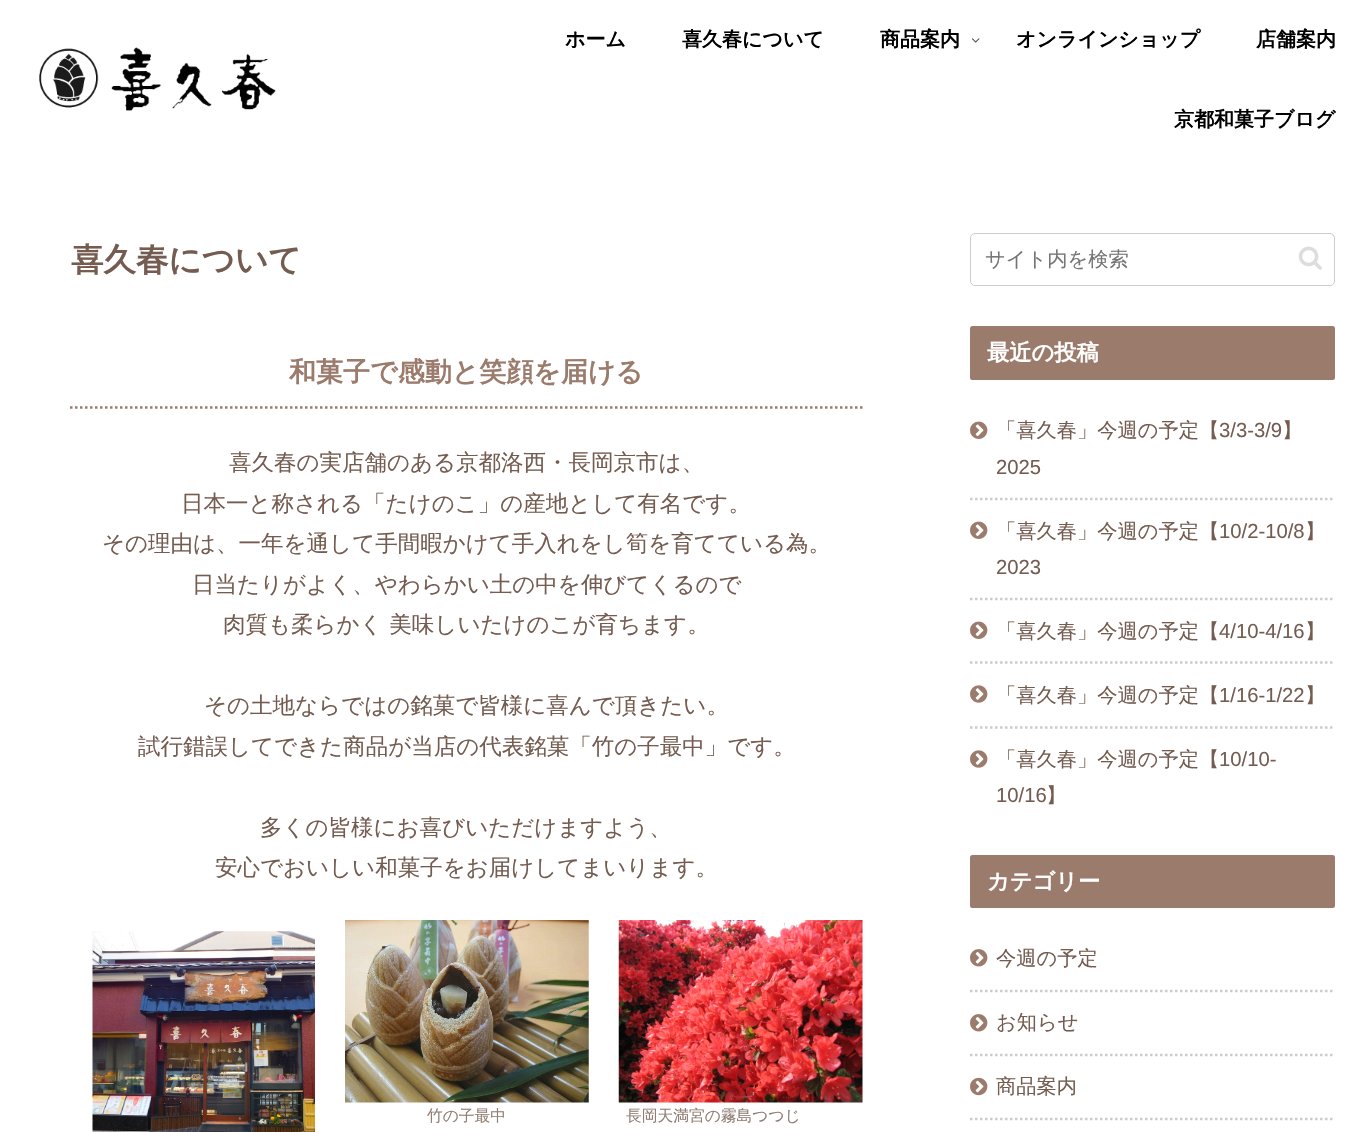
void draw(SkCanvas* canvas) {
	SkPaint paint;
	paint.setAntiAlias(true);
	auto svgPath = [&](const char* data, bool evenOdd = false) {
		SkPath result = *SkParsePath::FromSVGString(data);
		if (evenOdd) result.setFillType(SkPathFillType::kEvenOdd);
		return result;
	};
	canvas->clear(0xffffffff);
	canvas->drawImageRect(SkImages::DeferredFromEncodedData(SkData::MakeFromFileName("img1.png")), SkRect::MakeXYWH(39, 47, 237, 64), SkSamplingOptions());
	SkFont f1(fontMgr->matchFamilyStyle("WenQuanYi Zen Hei", SkFontStyle::Bold()), 20);
	f1.setSubpixel(true);
	paint.setColor(0xff000000);
	canvas->drawString("ホーム", 565, 46, f1, paint);
	canvas->drawString("喜久春について", 682, 46, f1, paint);
	canvas->drawString("商品案内", 880, 46, f1, paint);
	canvas->drawImageRect(SkImages::DeferredFromEncodedData(SkData::MakeFromFileName("img2.png")), SkRect::MakeXYWH(971, 38, 9, 5), SkSamplingOptions());
	canvas->drawString("オンラインショップ", 1016, 46, f1, paint);
	canvas->drawString("店舗案内", 1256, 46, f1, paint);
	canvas->drawString("京都和菓子ブログ", 1174, 126, f1, paint);
	SkFont f2(fontMgr->matchFamilyStyle("WenQuanYi Zen Hei", SkFontStyle::Bold()), 32.5);
	f2.setSubpixel(true);
	paint.setColor(0xff745c51);
	canvas->drawString("喜久春について", 71, 271, f2, paint);
	paint.setStroke(true);
	paint.setStrokeWidth(2.5);
	paint.setColor(0xff9b7b6c);
	paint.setPathEffect(SkDashPathEffect::Make({{2.5f, 2.5f}}, 0));
	canvas->drawPath(svgPath("M70 407.5H862.5"), paint);
	paint.setPathEffect(nullptr);
	SkFont f3(fontMgr->matchFamilyStyle("WenQuanYi Zen Hei", SkFontStyle::Bold()), 27);
	f3.setSubpixel(true);
	paint.setStroke(false);
	canvas->drawString("和菓子で感動と笑顔を届ける", 289, 381, f3, paint);
	SkFont f4(fontMgr->matchFamilyStyle("WenQuanYi Zen Hei", SkFontStyle(500, SkFontStyle::kNormal_Width, SkFontStyle::kUpright_Slant)), 22.5);
	f4.setSubpixel(true);
	paint.setColor(0xff745c51);
	canvas->drawString("喜久春の実店舗のある京都洛西・長岡京市は、", 229, 470, f4, paint);
	canvas->drawString("日本一と称される「たけのこ」の産地として有名です。", 181, 511, f4, paint);
	canvas->drawString("その理由は、一年を通して手間暇かけて手入れをし筍を育てている為。", 102, 551, f4, paint);
	canvas->drawString("日当たりがよく、やわらかい土の中を伸びてくるので", 192, 592, f4, paint);
	canvas->drawString("肉質も柔らかく 美味しいたけのこが育ちます。", 223, 632, f4, paint);
	canvas->drawString("その土地ならではの銘菓で皆様に喜んで頂きたい。", 204, 713, f4, paint);
	canvas->drawString("試行錯誤してできた商品が当店の代表銘菓「竹の子最中」です。", 138, 754, f4, paint);
	canvas->drawString("多くの皆様にお喜びいただけますよう、", 260, 835, f4, paint);
	canvas->drawString("安心でおいしい和菓子をお届けしてまいります。", 215, 875, f4, paint);
	canvas->drawImageRect(SkImages::DeferredFromEncodedData(SkData::MakeFromFileName("img3.png")), SkRect::MakeXYWH(92, 931, 223, 201), SkSamplingOptions());
	canvas->drawImageRect(SkImages::DeferredFromEncodedData(SkData::MakeFromFileName("img4.png")), SkRect::MakeXYWH(345, 920, 244, 183), SkSamplingOptions());
	SkFont f5(fontMgr->matchFamilyStyle("WenQuanYi Zen Hei", SkFontStyle(500, SkFontStyle::kNormal_Width, SkFontStyle::kUpright_Slant)), 15.75);
	f5.setSubpixel(true);
	paint.setColor(0xff907d74);
	canvas->drawString("竹の子最中", 427, 1121, f5, paint);
	canvas->drawImageRect(SkImages::DeferredFromEncodedData(SkData::MakeFromFileName("img5.png")), SkRect::MakeXYWH(618, 920, 245, 183), SkSamplingOptions());
	canvas->drawString("長岡天満宮の霧島つつじ", 626, 1121, f5, paint);
	paint.setStroke(true);
	paint.setStrokeWidth(1);
	paint.setColor(0xffcccccc);
	canvas->drawRoundRect(SkRect::MakeXYWH(970.5, 233.5, 364, 52), 4.5, 4.5, paint);
	SkFont f6(fontMgr->matchFamilyStyle("WenQuanYi Zen Hei", SkFontStyle(500, SkFontStyle::kNormal_Width, SkFontStyle::kUpright_Slant)), 20.25);
	f6.setSubpixel(true);
	paint.setStroke(false);
	paint.setColor(0xff757575);
	canvas->drawString("サイト内を検索", 985, 266, f6, paint);
	canvas->drawImageRect(SkImages::DeferredFromEncodedData(SkData::MakeFromFileName("img6.png")), SkRect::MakeXYWH(1298, 246, 24, 24), SkSamplingOptions());
	paint.setColor(0xff9b7b6c);
	canvas->drawRoundRect(SkRect::MakeXYWH(970, 326, 365, 54), 2.5, 2.5, paint);
	SkFont f7(fontMgr->matchFamilyStyle("WenQuanYi Zen Hei", SkFontStyle::Bold()), 22.25);
	f7.setSubpixel(true);
	paint.setColor(0xffffffff);
	canvas->drawString("最近の投稿", 987, 360, f7, paint);
	paint.setStroke(true);
	paint.setStrokeWidth(2.5);
	paint.setColor(0xffcccccc);
	paint.setPathEffect(SkDashPathEffect::Make({{2.5f, 2.5f}}, 0));
	canvas->drawPath(svgPath("M970 499H1335"), paint);
	paint.setPathEffect(nullptr);
	canvas->drawImageRect(SkImages::DeferredFromEncodedData(SkData::MakeFromFileName("img7.png")), SkRect::MakeXYWH(970, 421, 18, 18), SkSamplingOptions());
	paint.setStroke(false);
	paint.setColor(0xff745c51);
	canvas->drawString("「喜久春」今週の予定【", 996, 437, f6, paint);
	SkFont f8(fontMgr->matchFamilyStyle("Liberation Sans", SkFontStyle::Normal()), 20.25);
	f8.setSubpixel(true);
	canvas->drawString("3/3-3/9", 1219, 437, f8, paint);
	canvas->drawString("】", 1282, 437, f6, paint);
	canvas->drawString("2025", 996, 474, f8, paint);
	paint.setStroke(true);
	paint.setColor(0xffcccccc);
	paint.setPathEffect(SkDashPathEffect::Make({{2.5f, 2.5f}}, 0));
	canvas->drawPath(svgPath("M970 599H1335"), paint);
	paint.setPathEffect(nullptr);
	canvas->drawImageRect(SkImages::DeferredFromEncodedData(SkData::MakeFromFileName("img7.png")), SkRect::MakeXYWH(970, 521, 18, 18), SkSamplingOptions());
	paint.setStroke(false);
	paint.setColor(0xff745c51);
	canvas->drawString("「喜久春」今週の予定【", 996, 538, f6, paint);
	canvas->drawString("10/2-10/8", 1219, 538, f8, paint);
	canvas->drawString("】", 1305, 538, f6, paint);
	canvas->drawString("2023", 996, 574, f8, paint);
	paint.setStroke(true);
	paint.setColor(0xffcccccc);
	paint.setPathEffect(SkDashPathEffect::Make({{2.5f, 2.5f}}, 0));
	canvas->drawPath(svgPath("M970 662.5H1335"), paint);
	paint.setPathEffect(nullptr);
	canvas->drawImageRect(SkImages::DeferredFromEncodedData(SkData::MakeFromFileName("img7.png")), SkRect::MakeXYWH(970, 621, 18, 18), SkSamplingOptions());
	paint.setStroke(false);
	paint.setColor(0xff745c51);
	canvas->drawString("「喜久春」今週の予定【", 996, 638, f6, paint);
	canvas->drawString("4/10-4/16", 1219, 638, f8, paint);
	canvas->drawString("】", 1305, 638, f6, paint);
	paint.setStroke(true);
	paint.setColor(0xffcccccc);
	paint.setPathEffect(SkDashPathEffect::Make({{2.5f, 2.5f}}, 0));
	canvas->drawPath(svgPath("M970 727.5H1335"), paint);
	paint.setPathEffect(nullptr);
	canvas->drawImageRect(SkImages::DeferredFromEncodedData(SkData::MakeFromFileName("img8.png")), SkRect::MakeXYWH(970, 685, 18, 18), SkSamplingOptions());
	paint.setStroke(false);
	paint.setColor(0xff745c51);
	canvas->drawString("「喜久春」今週の予定【", 996, 702, f6, paint);
	canvas->drawString("1/16-1/22", 1219, 702, f8, paint);
	canvas->drawString("】", 1305, 702, f6, paint);
	canvas->drawImageRect(SkImages::DeferredFromEncodedData(SkData::MakeFromFileName("img8.png")), SkRect::MakeXYWH(970, 750, 18, 18), SkSamplingOptions());
	canvas->drawString("「喜久春」今週の予定【", 996, 766, f6, paint);
	canvas->drawString("10/10-", 1219, 766, f8, paint);
	canvas->drawString("10/16", 996, 802, f8, paint);
	canvas->drawString("】", 1046, 802, f6, paint);
	paint.setColor(0xff9b7b6c);
	canvas->drawRoundRect(SkRect::MakeXYWH(970, 855, 365, 53), 2.5, 2.5, paint);
	paint.setColor(0xffffffff);
	canvas->drawString("カテゴリー", 987, 889, f7, paint);
	paint.setStroke(true);
	paint.setColor(0xffcccccc);
	paint.setPathEffect(SkDashPathEffect::Make({{2.5f, 2.5f}}, 0));
	canvas->drawPath(svgPath("M970 991H1335"), paint);
	paint.setPathEffect(nullptr);
	canvas->drawImageRect(SkImages::DeferredFromEncodedData(SkData::MakeFromFileName("img9.png")), SkRect::MakeXYWH(970, 949, 18, 18), SkSamplingOptions());
	paint.setStroke(false);
	paint.setColor(0xff745c51);
	canvas->drawString("今週の予定", 996, 965, f6, paint);
	paint.setStroke(true);
	paint.setColor(0xffcccccc);
	paint.setPathEffect(SkDashPathEffect::Make({{2.5f, 2.5f}}, 0));
	canvas->drawPath(svgPath("M970 1055H1335"), paint);
	paint.setPathEffect(nullptr);
	canvas->drawImageRect(SkImages::DeferredFromEncodedData(SkData::MakeFromFileName("img9.png")), SkRect::MakeXYWH(970, 1014, 18, 18), SkSamplingOptions());
	paint.setStroke(false);
	paint.setColor(0xff745c51);
	canvas->drawString("お知らせ", 996, 1029, f6, paint);
	paint.setStroke(true);
	paint.setColor(0xffcccccc);
	paint.setPathEffect(SkDashPathEffect::Make({{2.5f, 2.5f}}, 0));
	canvas->drawPath(svgPath("M970 1119H1335"), paint);
	paint.setPathEffect(nullptr);
	canvas->drawImageRect(SkImages::DeferredFromEncodedData(SkData::MakeFromFileName("img10.png")), SkRect::MakeXYWH(970, 1077, 18, 19), SkSamplingOptions());
	paint.setStroke(false);
	paint.setColor(0xff745c51);
	canvas->drawString("商品案内", 996, 1093, f6, paint);
}
